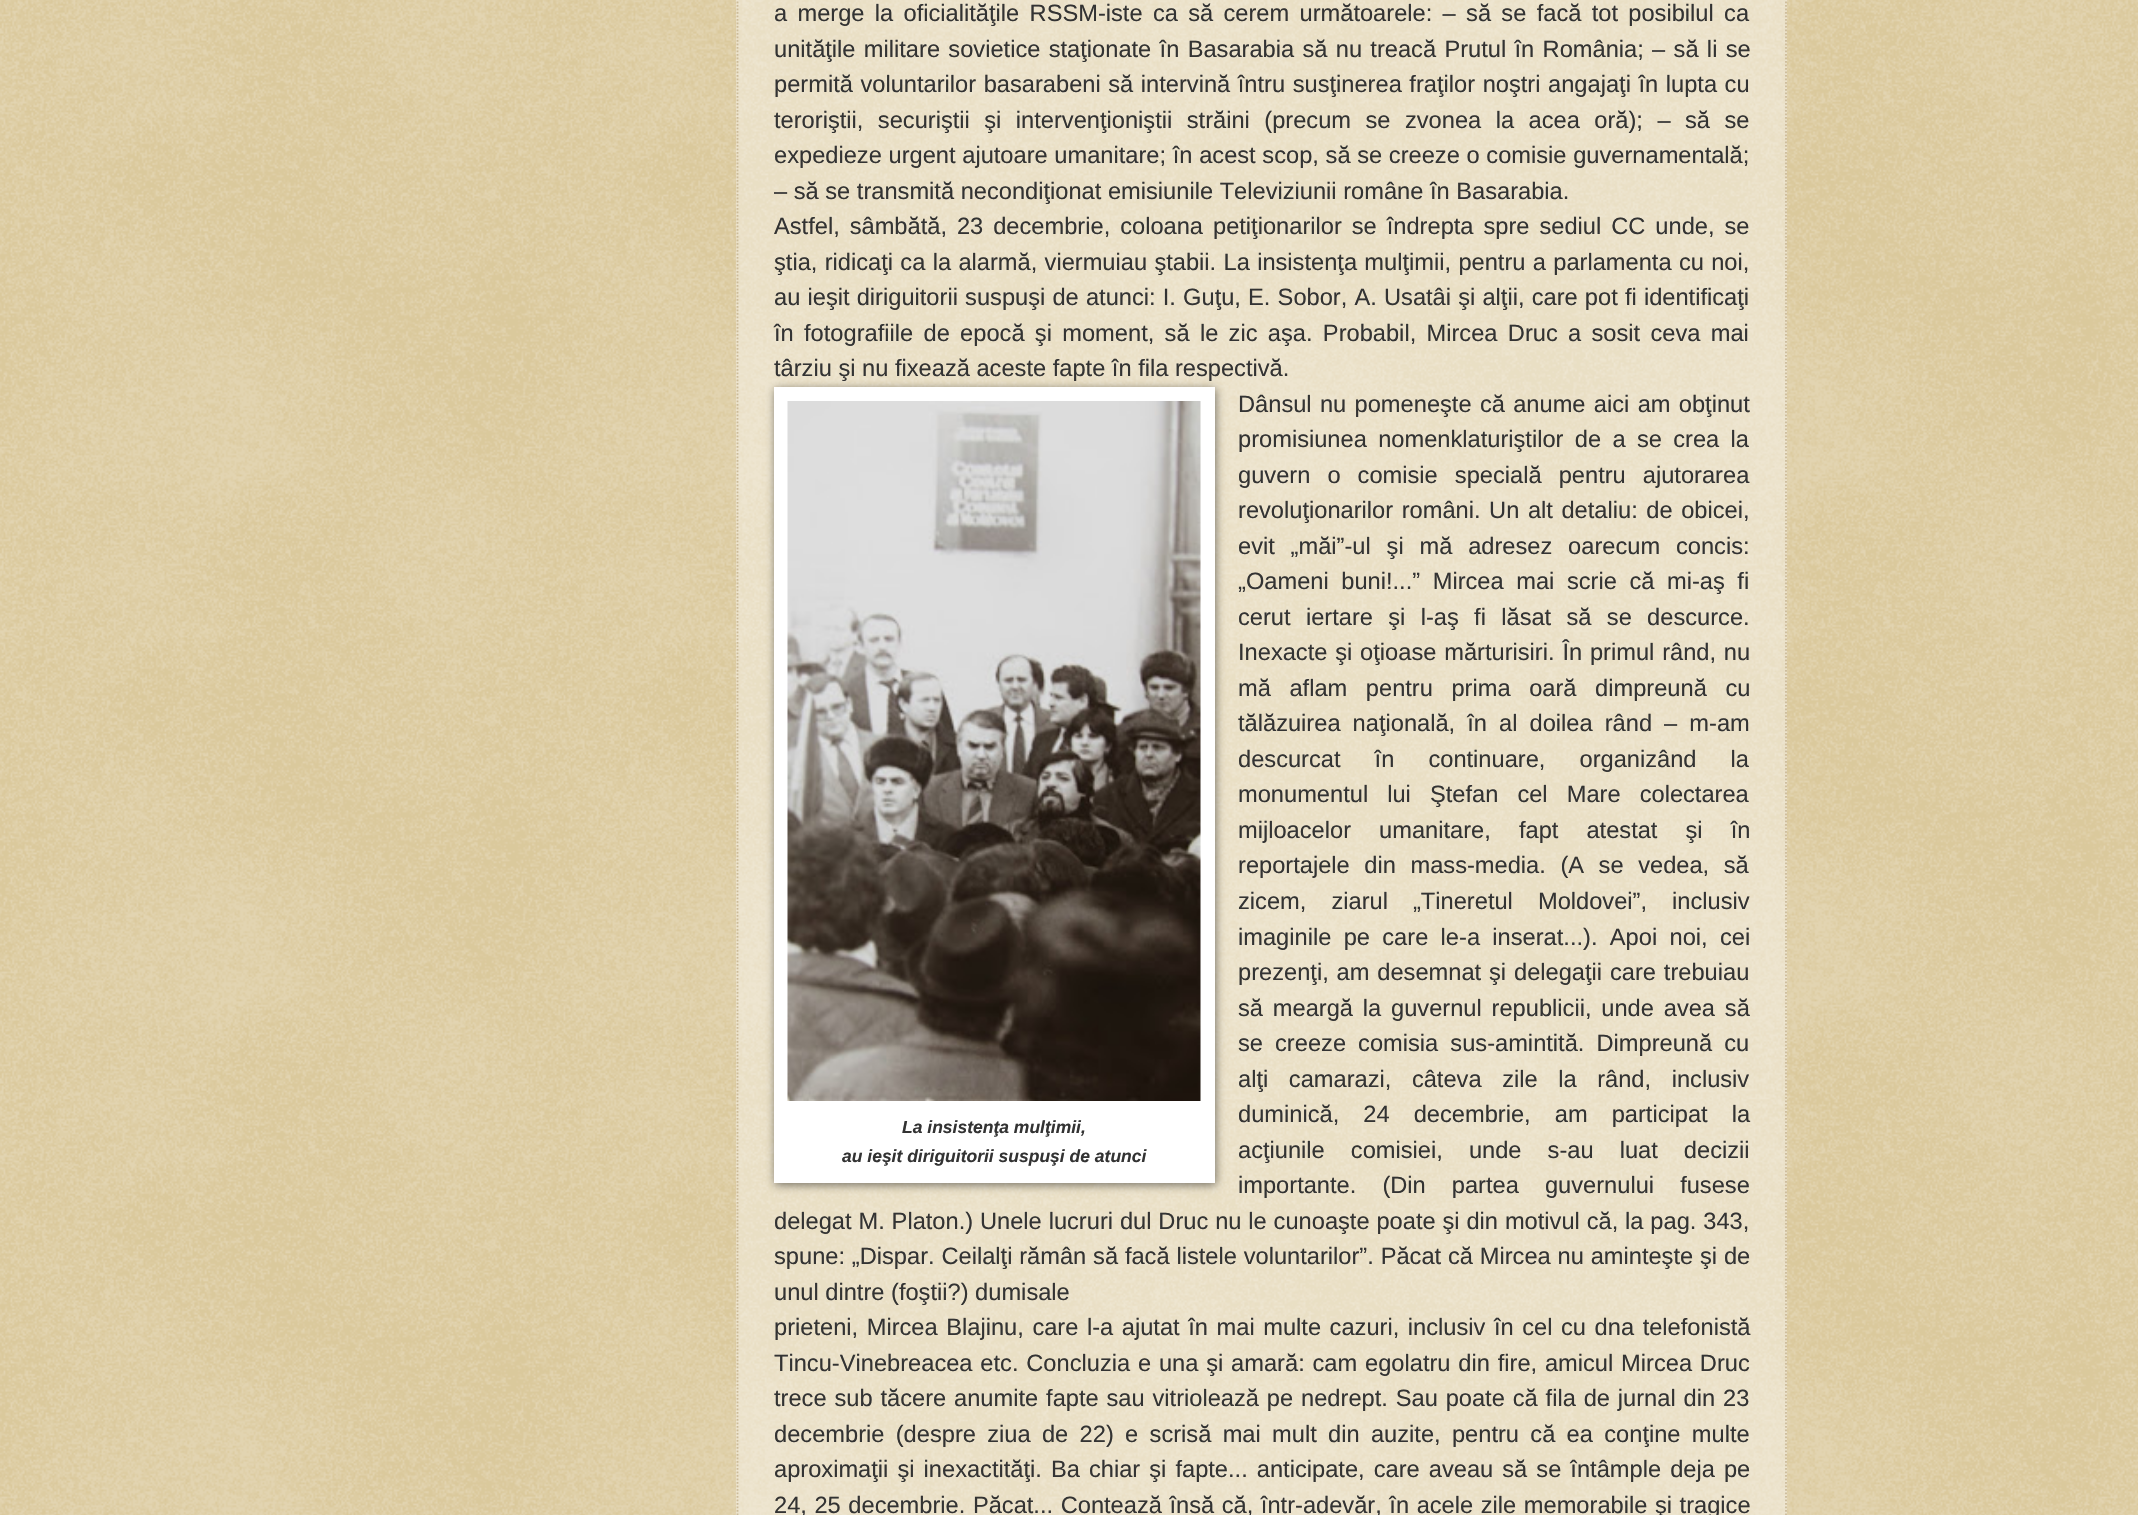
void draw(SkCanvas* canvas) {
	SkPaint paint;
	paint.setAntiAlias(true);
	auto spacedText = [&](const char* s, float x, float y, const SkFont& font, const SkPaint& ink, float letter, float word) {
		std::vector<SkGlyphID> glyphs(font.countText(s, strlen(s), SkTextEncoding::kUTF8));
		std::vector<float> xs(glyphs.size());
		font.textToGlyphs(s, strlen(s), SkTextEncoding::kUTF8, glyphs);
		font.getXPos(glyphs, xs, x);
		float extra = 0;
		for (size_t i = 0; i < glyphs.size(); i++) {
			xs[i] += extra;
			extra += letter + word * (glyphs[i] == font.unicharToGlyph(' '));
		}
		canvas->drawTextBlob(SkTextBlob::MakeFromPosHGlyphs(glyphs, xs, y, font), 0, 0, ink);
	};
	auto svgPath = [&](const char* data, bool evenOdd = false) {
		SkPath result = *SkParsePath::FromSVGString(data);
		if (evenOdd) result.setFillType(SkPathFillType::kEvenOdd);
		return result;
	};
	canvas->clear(0xffc0a154);
	canvas->drawImageRect(SkImages::DeferredFromEncodedData(SkData::MakeFromFileName("img1.png")), SkRect::MakeXYWH(0, 0, 2138, 1515), SkSamplingOptions());
	paint.setColor(0x66ffffff);
	canvas->drawRect(SkRect::MakeXYWH(736, 0, 1051, 1515), paint);
	paint.setStroke(true);
	paint.setStrokeWidth(1.8);
	paint.setColor(0xffccbb99);
	paint.setPathEffect(SkDashPathEffect::Make({{1.75f, 1.75f}}, 0));
	canvas->drawPath(svgPath("M1786-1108V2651"), paint);
	paint.setPathEffect(nullptr);
	paint.setPathEffect(SkDashPathEffect::Make({{1.75f, 1.75f}}, 0));
	canvas->drawPath(svgPath("M737.5-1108V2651"), paint);
	paint.setPathEffect(nullptr);
	SkFont f1(fontMgr->matchFamilyStyle("Liberation Sans", SkFontStyle::Normal()), 23.65);
	f1.setSubpixel(true);
	paint.setStroke(false);
	paint.setColor(0xff333333);
	spacedText("a merge la oficialităţile RSSM-iste ca să cerem următoarele: – să se facă tot posibilul ca", 774, 21, f1, paint, 0, 3.75);
	spacedText("unităţile militare sovietice staţionate în Basarabia să nu treacă Prutul în România; – să li se", 774, 57, f1, paint, 0, 1.75);
	spacedText("permită voluntarilor basarabeni să intervină întru susţinerea fraţilor noştri angajaţi în lupta cu", 774, 92, f1, paint, 0, 1);
	spacedText("teroriştii, securiştii şi intervenţioniştii străini (precum se zvonea la acea oră); – să se", 774, 128, f1, paint, 0, 7.9);
	spacedText("expedieze urgent ajutoare umanitare; în acest scop, să se creeze o comisie guvernamentală;", 774, 163, f1, paint, 0, 0.1);
	canvas->drawString("– să se transmită necondiţionat emisiunile Televiziunii române în Basarabia.", 774, 199, f1, paint);
	spacedText("Astfel, sâmbătă, 23 decembrie, coloana petiţionarilor se îndrepta spre sediul CC unde, se", 774, 234, f1, paint, 0, 3.4);
	spacedText("ştia, ridicaţi ca la alarmă, viermuiau ştabii. La insistenţa mulţimii, pentru a parlamenta cu noi,", 774, 270, f1, paint, 0, 0.75);
	spacedText("au ieşit diriguitorii suspuşi de atunci: I. Guţu, E. Sobor, A. Usatâi şi alţii, care pot fi identificaţi", 774, 305, f1, paint, 0, 0.6);
	spacedText("în fotografiile de epocă şi moment, să le zic aşa. Probabil, Mircea Druc a sosit ceva mai", 774, 341, f1, paint, 0, 3.75);
	canvas->drawString("târziu şi nu fixează aceste fapte în fila respectivă.", 774, 376, f1, paint);
	spacedText("Dânsul nu pomeneşte că anume aici am obţinut", 1238, 412, f1, paint, 0, 1.75);
	spacedText("promisiunea nomenklaturiştilor de a se crea la", 1238, 447, f1, paint, 0, 4.75);
	spacedText("guvern o comisie specială pentru ajutorarea", 1238, 483, f1, paint, 0, 10.5);
	spacedText("revoluţionarilor români. Un alt detaliu: de obicei,", 1238, 518, f1, paint, 0, 2);
	spacedText("evit „măi”-ul şi mă adresez oarecum concis:", 1238, 554, f1, paint, 0, 9.25);
	spacedText("„Oameni buni!...” Mircea mai scrie că mi-aş fi", 1238, 589, f1, paint, 0, 6);
	spacedText("cerut iertare şi l-aş fi lăsat să se descurce.", 1238, 625, f1, paint, 0, 8.75);
	spacedText("Inexacte şi oţioase mărturisiri. În primul rând, nu", 1238, 660, f1, paint, 0, 1.25);
	spacedText("mă aflam pentru prima oară dimpreună cu", 1238, 696, f1, paint, 0, 12);
	spacedText("tălăzuirea naţională, în al doilea rând – m-am", 1238, 731, f1, paint, 0, 5.5);
	spacedText("descurcat în continuare, organizând la", 1238, 767, f1, paint, 0, 27.5);
	spacedText("monumentul lui Ştefan cel Mare colectarea", 1238, 802, f1, paint, 0, 12.5);
	spacedText("mijloacelor umanitare, fapt atestat şi în", 1238, 838, f1, paint, 0, 21.5);
	spacedText("reportajele din mass-media. (A se vedea, să", 1238, 873, f1, paint, 0, 8);
	spacedText("zicem, ziarul „Tineretul Moldovei”, inclusiv", 1238, 909, f1, paint, 0, 18.5);
	spacedText("imaginile pe care le-a inserat...). Apoi noi, cei", 1238, 945, f1, paint, 0, 5.75);
	spacedText("prezenţi, am desemnat şi delegaţii care trebuiau", 1238, 980, f1, paint, 0, 1.3);
	spacedText("să meargă la guvernul republicii, unde avea să", 1238, 1016, f1, paint, 0, 3.25);
	spacedText("se creeze comisia sus-amintită. Dimpreună cu", 1238, 1051, f1, paint, 0, 5.5);
	spacedText("alţi camarazi, câteva zile la rând, inclusiv", 1238, 1087, f1, paint, 0, 14);
	spacedText("duminică, 24 decembrie, am participat la", 1238, 1122, f1, paint, 0, 17.5);
	spacedText("acţiunile comisiei, unde s-au luat decizii", 1238, 1158, f1, paint, 0, 19.5);
	spacedText("importante. (Din partea guvernului fusese", 1238, 1193, f1, paint, 0, 19.5);
	spacedText("delegat M. Platon.) Unele lucruri dul Druc nu le cunoaşte poate şi din motivul că, la pag. 343,", 774, 1229, f1, paint, 0, 0.3);
	spacedText("spune: „Dispar. Ceilalţi rămân să facă listele voluntarilor”. Păcat că Mircea nu aminteşte şi de", 774, 1264, f1, paint, 0, 0.25);
	canvas->drawString("unul dintre (foştii?) dumisale", 774, 1300, f1, paint);
	paint.setColor(0x80000000);
	paint.setMaskFilter(SkMaskFilter::MakeBlur(kNormal_SkBlurStyle, 4.5));
	canvas->drawRect(SkRect::MakeXYWH(775, 389, 441, 796), paint);
	paint.setMaskFilter(nullptr);
	paint.setColor(0xffffffff);
	canvas->drawRect(SkRect::MakeXYWH(774, 387, 441, 796), paint);
	canvas->drawImageRect(SkImages::DeferredFromEncodedData(SkData::MakeFromFileName("img2.png")), SkRect::MakeXYWH(787, 401, 414, 700), SkSamplingOptions());
	SkFont f2(fontMgr->matchFamilyStyle("Liberation Sans", SkFontStyle::BoldItalic()), 17.5);
	f2.setSubpixel(true);
	paint.setColor(0xff333333);
	canvas->drawString("La insistenţa mulţimii,", 902, 1133, f2, paint);
	canvas->drawString("au ieşit diriguitorii suspuşi de atunci", 842, 1162, f2, paint);
	spacedText("prieteni, Mircea Blajinu, care l-a ajutat în mai multe cazuri, inclusiv în cel cu dna telefonistă", 774, 1335, f1, paint, 0, 2);
	spacedText("Tincu-Vinebreacea etc. Concluzia e una şi amară: cam egolatru din fire, amicul Mircea Druc", 774, 1371, f1, paint, 0, 1.25);
	spacedText("trece sub tăcere anumite fapte sau vitriolează pe nedrept. Sau poate că fila de jurnal din 23", 774, 1406, f1, paint, 0, 1.3);
	spacedText("decembrie (despre ziua de 22) e scrisă mai mult din auzite, pentru că ea conţine multe", 774, 1442, f1, paint, 0, 4.75);
	spacedText("aproximaţii şi inexactităţi. Ba chiar şi fapte... anticipate, care aveau să se întâmple deja pe", 774, 1477, f1, paint, 0, 2.5);
	spacedText("24, 25 decembrie. Păcat... Contează însă că, într-adevăr, în acele zile memorabile şi tragice", 774, 1513, f1, paint, 0, 1);
}
